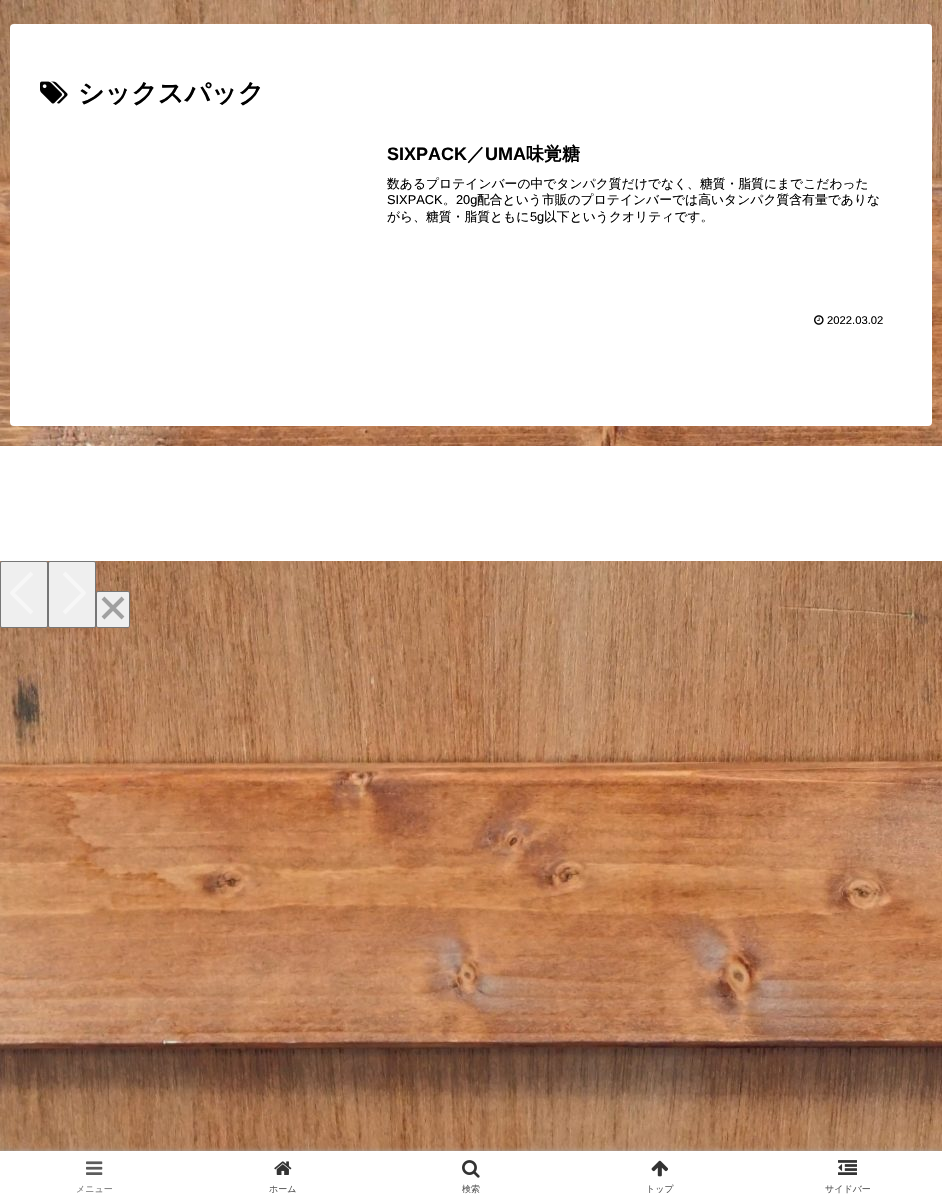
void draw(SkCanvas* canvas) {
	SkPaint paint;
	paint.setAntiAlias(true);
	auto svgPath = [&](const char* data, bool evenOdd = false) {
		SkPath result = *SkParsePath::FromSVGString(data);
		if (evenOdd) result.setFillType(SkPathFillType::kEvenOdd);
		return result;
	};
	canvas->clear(0xffffffff);
	canvas->drawImageRect(SkImages::DeferredFromEncodedData(SkData::MakeFromFileName("img1.png")), SkRect::MakeXYWH(0, 0, 942, 1151), SkSamplingOptions());
	paint.setColor(0xffefefef);
	canvas->drawRoundRect(SkRect::MakeXYWH(0.5, 561.5, 47, 66), 1.5, 1.5, paint);
	paint.setStroke(true);
	paint.setStrokeWidth(1);
	paint.setColor(0xff767676);
	canvas->drawRoundRect(SkRect::MakeXYWH(0.5, 561.5, 47, 66), 1.5, 1.5, paint);
	paint.setStrokeWidth(4);
	paint.setStrokeJoin(SkPaint::kRound_Join);
	paint.setColor(0xfff7f7f7);
	canvas->drawPath(svgPath("M32 573L12 593L32 613"), paint);
	paint.setStroke(false);
	paint.setColor(0xffefefef);
	canvas->drawRoundRect(SkRect::MakeXYWH(48.5, 561.5, 47, 66), 1.5, 1.5, paint);
	paint.setStroke(true);
	paint.setStrokeWidth(1);
	paint.setStrokeJoin(SkPaint::kMiter_Join);
	paint.setColor(0xff767676);
	canvas->drawRoundRect(SkRect::MakeXYWH(48.5, 561.5, 47, 66), 1.5, 1.5, paint);
	paint.setStrokeWidth(4);
	paint.setStrokeJoin(SkPaint::kRound_Join);
	paint.setColor(0xfff7f7f7);
	canvas->drawPath(svgPath("M64 573L84 593L64 613"), paint);
	paint.setStroke(false);
	paint.setColor(0xffefefef);
	canvas->drawRoundRect(SkRect::MakeXYWH(96.5, 591.5, 33, 36), 1.5, 1.5, paint);
	paint.setStroke(true);
	paint.setStrokeWidth(1);
	paint.setStrokeJoin(SkPaint::kMiter_Join);
	paint.setColor(0xff767676);
	canvas->drawRoundRect(SkRect::MakeXYWH(96.5, 591.5, 33, 36), 1.5, 1.5, paint);
	paint.setStrokeWidth(4);
	paint.setColor(0xffa0a0a0);
	canvas->drawPath(svgPath("M103 598L123 618M103 618L123 598"), paint);
	paint.setStroke(false);
	paint.setColor(0xffffffff);
	canvas->drawRoundRect(SkRect::MakeXYWH(10, 24, 922, 402), 4, 4, paint);
	canvas->drawImageRect(SkImages::DeferredFromEncodedData(SkData::MakeFromFileName("img2.png")), SkRect::MakeXYWH(40, 81, 28, 23), SkSamplingOptions());
	SkFont f1(fontMgr->matchFamilyStyle("WenQuanYi Zen Hei", SkFontStyle::Bold()), 26);
	f1.setSubpixel(true);
	paint.setColor(0xff000000);
	canvas->drawString("シックスパック", 78, 102, f1, paint);
	SkFont f2(fontMgr->matchFamilyStyle("Liberation Sans", SkFontStyle::Bold()), 18);
	f2.setSubpixel(true);
	canvas->drawString("SIXPACK", 387, 160, f2, paint);
	SkFont f3(fontMgr->matchFamilyStyle("WenQuanYi Zen Hei", SkFontStyle::Bold()), 18);
	f3.setSubpixel(true);
	canvas->drawString("／", 467, 160, f3, paint);
	canvas->drawString("UMA", 485, 160, f2, paint);
	canvas->drawString("味覚糖", 526, 160, f3, paint);
	SkFont f4(fontMgr->matchFamilyStyle("WenQuanYi Zen Hei", SkFontStyle(500, SkFontStyle::kNormal_Width, SkFontStyle::kUpright_Slant)), 12.8);
	f4.setSubpixel(true);
	canvas->drawString("数あるプロテインバーの中でタンパク質だけでなく、糖質・脂質にまでこだわった", 387, 188, f4, paint);
	SkFont f5(fontMgr->matchFamilyStyle("Liberation Sans", SkFontStyle::Normal()), 12.8);
	f5.setSubpixel(true);
	canvas->drawString("SIXPACK", 387, 204, f5, paint);
	canvas->drawString("。", 443, 204, f4, paint);
	canvas->drawString("20g", 456, 204, f5, paint);
	canvas->drawString("配合という市販のプロテインバーでは高いタンパク質含有量でありな", 477, 204, f4, paint);
	canvas->drawString("がら、糖質・脂質ともに", 387, 221, f4, paint);
	canvas->drawString("5g", 530, 221, f5, paint);
	canvas->drawString("以下というクオリティです。", 544, 221, f4, paint);
	canvas->drawImageRect(SkImages::DeferredFromEncodedData(SkData::MakeFromFileName("img3.png")), SkRect::MakeXYWH(814, 315, 10, 10), SkSamplingOptions());
	SkFont f6(fontMgr->matchFamilyStyle("Liberation Sans", SkFontStyle::Normal()), 11.25);
	f6.setSubpixel(true);
	canvas->drawString("2022.03.02", 827, 324, f6, paint);
	paint.setColor(0xffffffff);
	canvas->drawRect(SkRect::MakeXYWH(0, 446, 942, 115), paint);
	paint.setColor(0xffa9a9a9);
	paint.setMaskFilter(SkMaskFilter::MakeBlur(kNormal_SkBlurStyle, 2.5));
	canvas->drawRect(SkRect::MakeXYWH(0, 1151, 942, 50), paint);
	paint.setMaskFilter(nullptr);
	paint.setColor(0xffffffff);
	canvas->drawRect(SkRect::MakeXYWH(0, 1151, 942, 50), paint);
	canvas->drawImageRect(SkImages::DeferredFromEncodedData(SkData::MakeFromFileName("img4.png")), SkRect::MakeXYWH(86, 1161, 17, 14), SkSamplingOptions());
	SkFont f7(fontMgr->matchFamilyStyle("WenQuanYi Zen Hei", SkFontStyle(500, SkFontStyle::kNormal_Width, SkFontStyle::kUpright_Slant)), 9);
	f7.setSubpixel(true);
	paint.setColor(0xff7c7c7c);
	canvas->drawString("メニュー", 76, 1192, f7, paint);
	canvas->drawImageRect(SkImages::DeferredFromEncodedData(SkData::MakeFromFileName("img5.png")), SkRect::MakeXYWH(274, 1161, 18, 14), SkSamplingOptions());
	paint.setColor(0xff5c5c5c);
	canvas->drawString("ホーム", 269, 1192, f7, paint);
	canvas->drawImageRect(SkImages::DeferredFromEncodedData(SkData::MakeFromFileName("img6.png")), SkRect::MakeXYWH(462, 1160, 18, 18), SkSamplingOptions());
	canvas->drawString("検索", 462, 1192, f7, paint);
	canvas->drawImageRect(SkImages::DeferredFromEncodedData(SkData::MakeFromFileName("img7.png")), SkRect::MakeXYWH(651, 1160, 17, 17), SkSamplingOptions());
	canvas->drawString("トップ", 646, 1192, f7, paint);
	canvas->drawImageRect(SkImages::DeferredFromEncodedData(SkData::MakeFromFileName("img8.png")), SkRect::MakeXYWH(838, 1160, 19, 15), SkSamplingOptions());
	canvas->drawString("サイドバー", 825, 1192, f7, paint);
}
